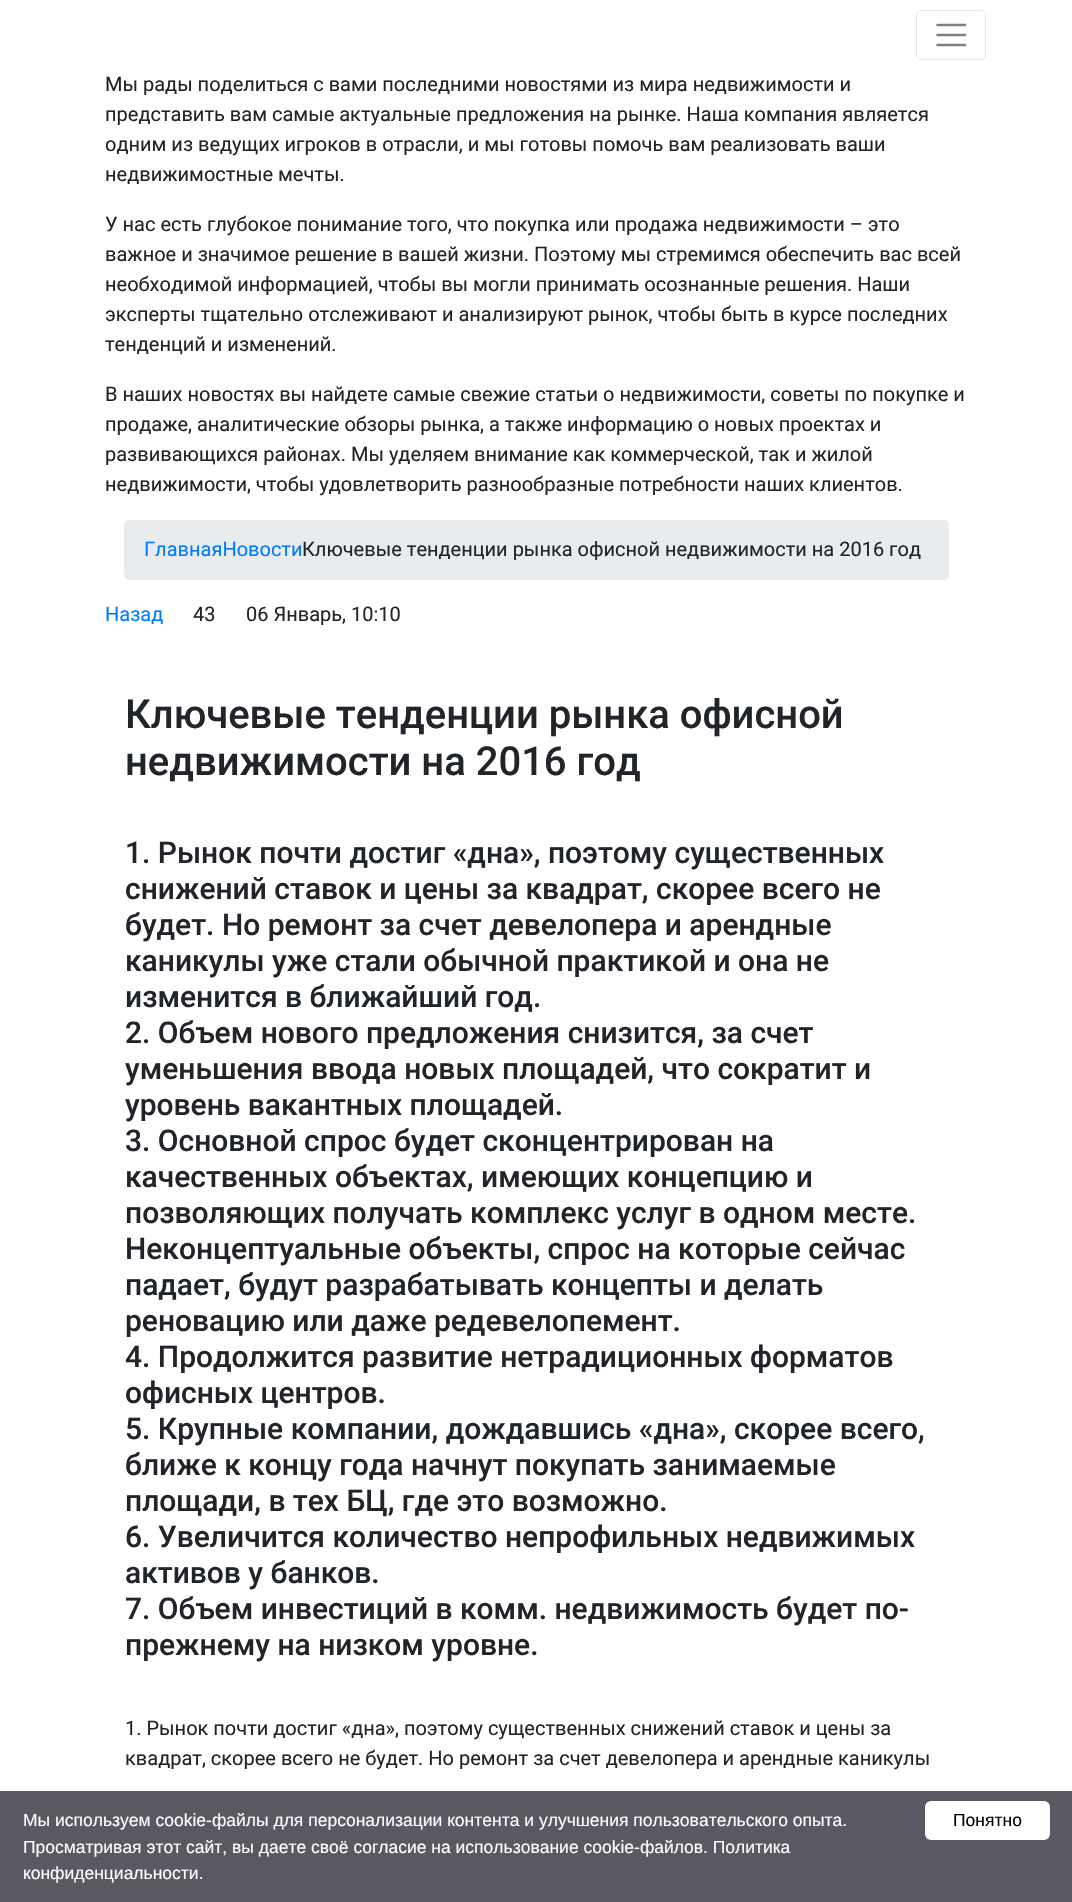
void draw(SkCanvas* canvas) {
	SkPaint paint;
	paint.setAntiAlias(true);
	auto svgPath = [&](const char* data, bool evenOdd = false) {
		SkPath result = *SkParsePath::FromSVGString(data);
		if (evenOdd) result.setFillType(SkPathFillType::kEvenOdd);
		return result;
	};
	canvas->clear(0xffffffff);
	paint.setStroke(true);
	paint.setStrokeWidth(1);
	paint.setColor(0xffe6e6e6);
	canvas->drawRoundRect(SkRect::MakeXYWH(916.5, 10.5, 69, 49), 4.5, 4.5, paint);
	paint.setStrokeWidth(2.5);
	paint.setStrokeCap(SkPaint::kRound_Cap);
	paint.setColor(0xff808080);
	canvas->drawPath(svgPath("M937.5 25H965M937.5 35H965M937.5 45H965"), paint);
	SkFont f1(fontMgr->matchFamilyStyle("Roboto", SkFontStyle::Normal()), 20);
	f1.setSubpixel(true);
	paint.setStroke(false);
	paint.setColor(0xff212529);
	canvas->drawString("Мы рады поделиться с вами последними новостями из мира недвижимости и", 105, 91, f1, paint);
	canvas->drawString("представить вам самые актуальные предложения на рынке. Наша компания является", 105, 121, f1, paint);
	canvas->drawString("одним из ведущих игроков в отрасли, и мы готовы помочь вам реализовать ваши", 105, 151, f1, paint);
	canvas->drawString("недвижимостные мечты.", 105, 181, f1, paint);
	canvas->drawString("У нас есть глубокое понимание того, что покупка или продажа недвижимости – это", 105, 231, f1, paint);
	canvas->drawString("важное и значимое решение в вашей жизни. Поэтому мы стремимся обеспечить вас всей", 105, 261, f1, paint);
	canvas->drawString("необходимой информацией, чтобы вы могли принимать осознанные решения. Наши", 105, 291, f1, paint);
	canvas->drawString("эксперты тщательно отслеживают и анализируют рынок, чтобы быть в курсе последних", 105, 321, f1, paint);
	canvas->drawString("тенденций и изменений.", 105, 351, f1, paint);
	canvas->drawString("В наших новостях вы найдете самые свежие статьи о недвижимости, советы по покупке и", 105, 401, f1, paint);
	canvas->drawString("продаже, аналитические обзоры рынка, а также информацию о новых проектах и", 105, 431, f1, paint);
	canvas->drawString("развивающихся районах. Мы уделяем внимание как коммерческой, так и жилой", 105, 461, f1, paint);
	canvas->drawString("недвижимости, чтобы удовлетворить разнообразные потребности наших клиентов.", 105, 491, f1, paint);
	paint.setColor(0xffe9ecef);
	canvas->drawRoundRect(SkRect::MakeXYWH(124, 520, 825, 60), 5, 5, paint);
	paint.setColor(0xff007bff);
	canvas->drawString("ГлавнаяНовости", 144, 556, f1, paint);
	paint.setColor(0xff212529);
	canvas->drawString("Ключевые тенденции рынка офисной недвижимости на 2016 год", 302, 556, f1, paint);
	paint.setColor(0xff007bff);
	canvas->drawString("Назад", 105, 621, f1, paint);
	paint.setColor(0xff212529);
	canvas->drawString("43", 193, 621, f1, paint);
	canvas->drawString("06 Январь, 10:10", 246, 621, f1, paint);
	SkFont f2(fontMgr->matchFamilyStyle("Roboto", SkFontStyle(500, SkFontStyle::kNormal_Width, SkFontStyle::kUpright_Slant)), 40);
	f2.setSubpixel(true);
	canvas->drawString("Ключевые тенденции рынка офисной", 125, 728, f2, paint);
	canvas->drawString("недвижимости на 2016 год", 125, 775, f2, paint);
	SkFont f3(fontMgr->matchFamilyStyle("Roboto", SkFontStyle(500, SkFontStyle::kNormal_Width, SkFontStyle::kUpright_Slant)), 30);
	f3.setSubpixel(true);
	canvas->drawString("1. Рынок почти достиг «дна», поэтому существенных", 125, 863, f3, paint);
	canvas->drawString("снижений ставок и цены за квадрат, скорее всего не", 125, 899, f3, paint);
	canvas->drawString("будет. Но ремонт за счет девелопера и арендные", 125, 935, f3, paint);
	canvas->drawString("каникулы уже стали обычной практикой и она не", 125, 971, f3, paint);
	canvas->drawString("изменится в ближайший год.", 125, 1007, f3, paint);
	canvas->drawString("2. Объем нового предложения снизится, за счет", 125, 1043, f3, paint);
	canvas->drawString("уменьшения ввода новых площадей, что сократит и", 125, 1079, f3, paint);
	canvas->drawString("уровень вакантных площадей.", 125, 1115, f3, paint);
	canvas->drawString("3. Основной спрос будет сконцентрирован на", 125, 1151, f3, paint);
	canvas->drawString("качественных объектах, имеющих концепцию и", 125, 1187, f3, paint);
	canvas->drawString("позволяющих получать комплекс услуг в одном месте.", 125, 1223, f3, paint);
	canvas->drawString("Неконцептуальные объекты, спрос на которые сейчас", 125, 1259, f3, paint);
	canvas->drawString("падает, будут разрабатывать концепты и делать", 125, 1295, f3, paint);
	canvas->drawString("реновацию или даже редевелопемент.", 125, 1331, f3, paint);
	canvas->drawString("4. Продолжится развитие нетрадиционных форматов", 125, 1367, f3, paint);
	canvas->drawString("офисных центров.", 125, 1403, f3, paint);
	canvas->drawString("5. Крупные компании, дождавшись «дна», скорее всего,", 125, 1439, f3, paint);
	canvas->drawString("ближе к концу года начнут покупать занимаемые", 125, 1475, f3, paint);
	canvas->drawString("площади, в тех БЦ, где это возможно.", 125, 1511, f3, paint);
	canvas->drawString("6. Увеличится количество непрофильных недвижимых", 125, 1547, f3, paint);
	canvas->drawString("активов у банков.", 125, 1583, f3, paint);
	canvas->drawString("7. Объем инвестиций в комм. недвижимость будет по-", 125, 1619, f3, paint);
	canvas->drawString("прежнему на низком уровне.", 125, 1655, f3, paint);
	canvas->drawString("1. Рынок почти достиг «дна», поэтому существенных снижений ставок и цены за", 125, 1735, f1, paint);
	canvas->drawString("квадрат, скорее всего не будет. Но ремонт за счет девелопера и арендные каникулы", 125, 1765, f1, paint);
	paint.setColor(0xff595a61);
	canvas->drawRect(SkRect::MakeXYWH(0, 1791, 1072, 111), paint);
	SkFont f4(fontMgr->matchFamilyStyle("Liberation Sans", SkFontStyle::Normal()), 17.5);
	f4.setSubpixel(true);
	paint.setColor(0xffffffff);
	canvas->drawString("Мы используем cookie-файлы для персонализации контента и улучшения пользовательского опыта.", 23, 1826, f4, paint);
	canvas->drawString("Просматривая этот сайт, вы даете своё согласие на использование cookie-файлов. Политика", 23, 1853, f4, paint);
	canvas->drawString("конфиденциальности.", 23, 1879, f4, paint);
	canvas->drawRoundRect(SkRect::MakeXYWH(925, 1801, 125, 39), 6, 6, paint);
	paint.setColor(0xff000000);
	canvas->drawString("Понятно", 953, 1826, f4, paint);
}
